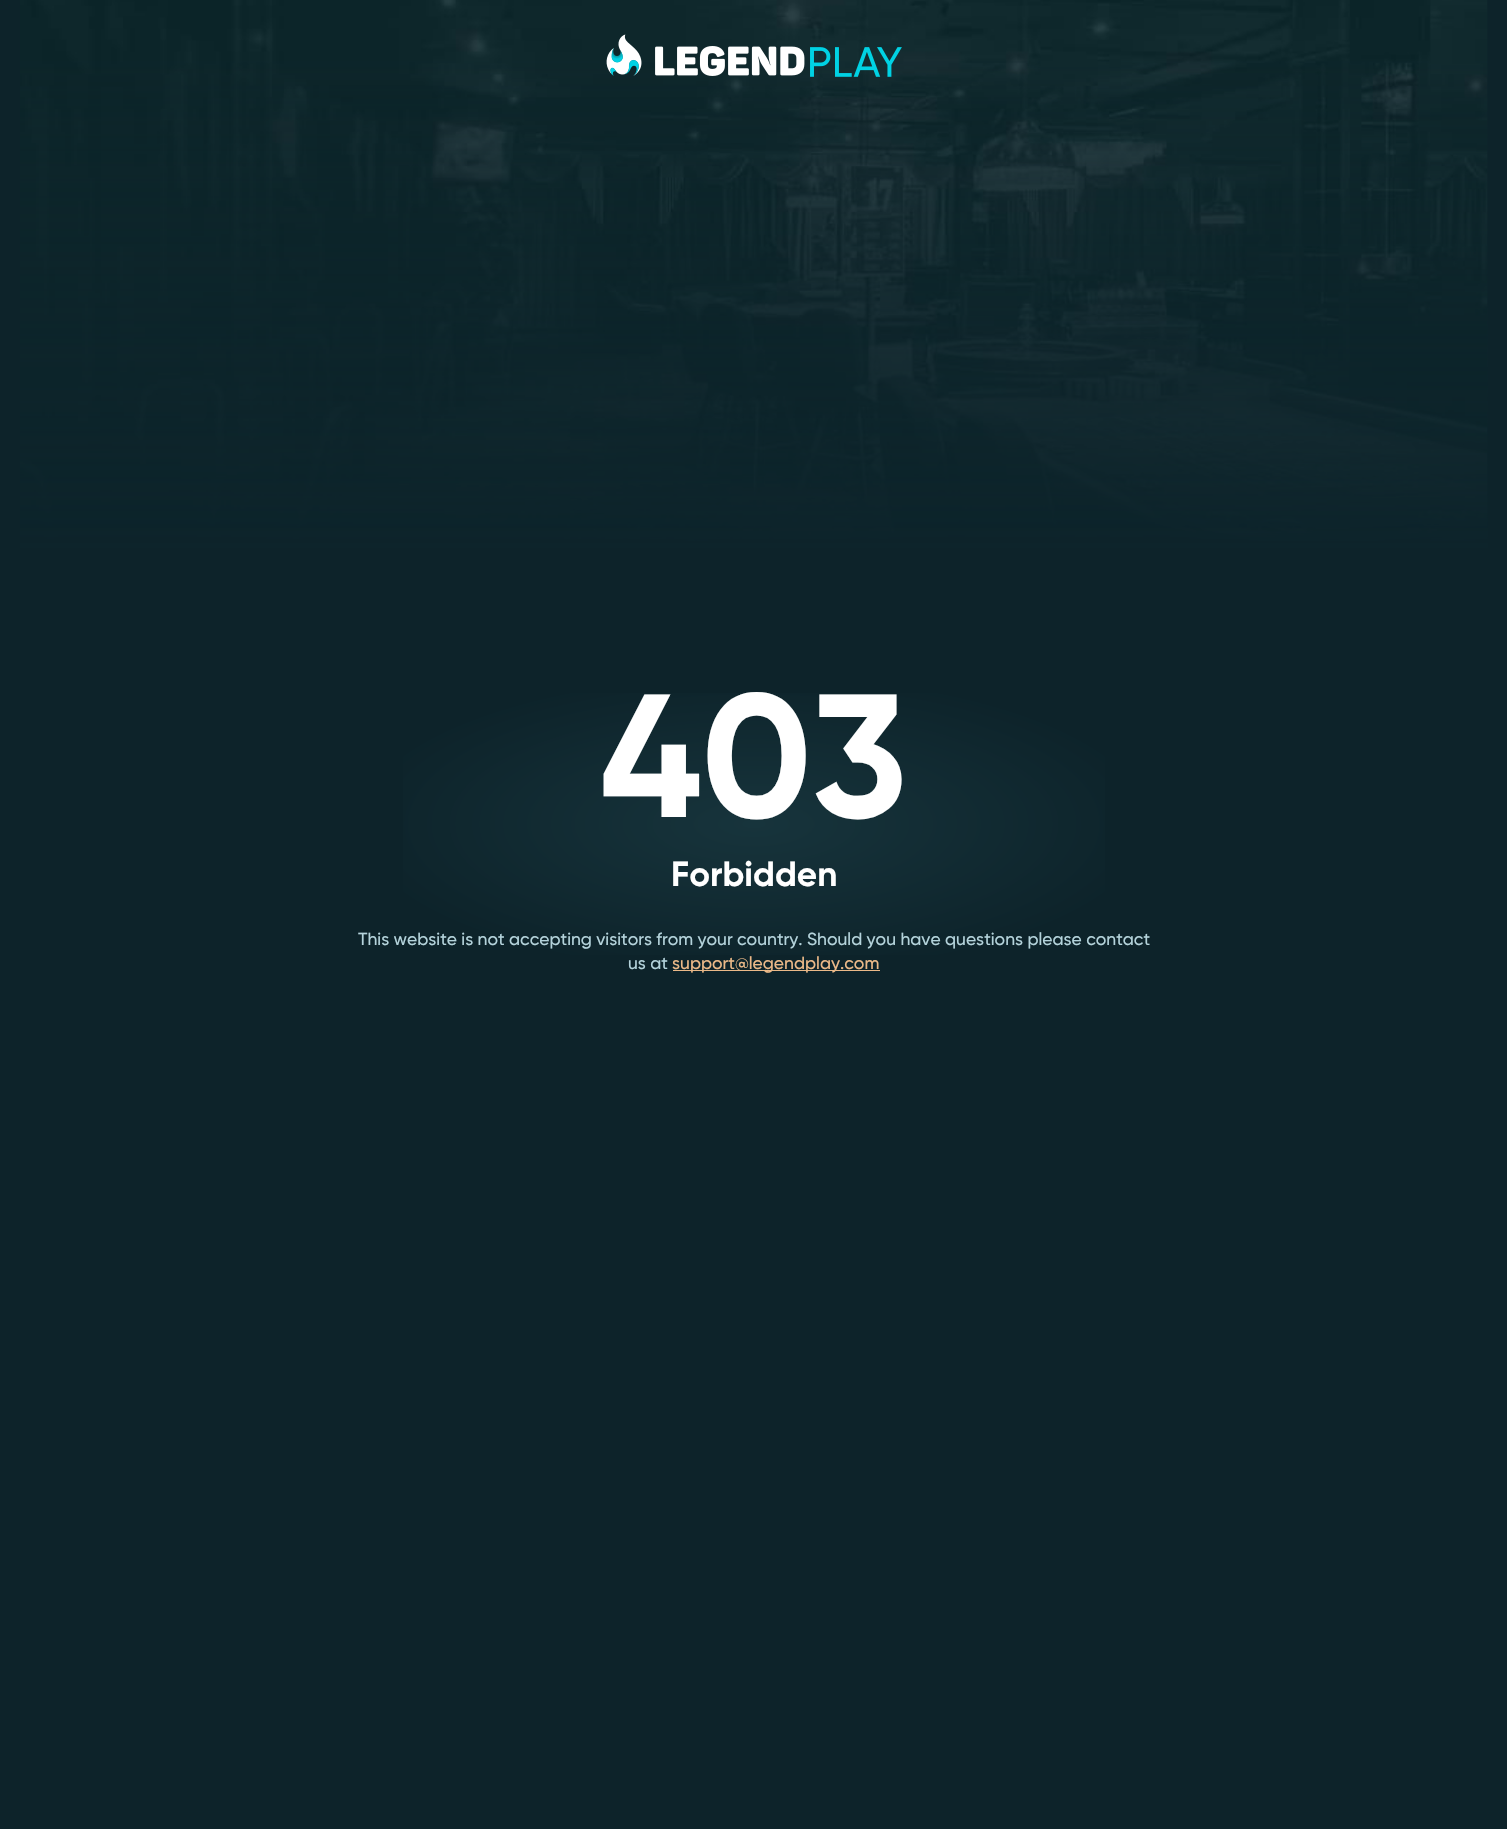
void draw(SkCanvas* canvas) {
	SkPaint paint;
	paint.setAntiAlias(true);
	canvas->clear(0xff0d232a);
	canvas->drawImageRect(SkImages::DeferredFromEncodedData(SkData::MakeFromFileName("img1.png")), SkRect::MakeXYWH(20, 0, 1468, 548), SkSamplingOptions());
	{
		const SkColor colors[] = {0x000c232a, 0xff0c232a};
		const float stops[] = {0, 1};
		const SkPoint ends[] = {{754, 1.2}, {754, 551}};
		paint.setShader(SkGradientShader::MakeLinear(ends, colors, stops, 2, SkTileMode::kClamp));
		paint.setAlpha(255);
	}
	canvas->drawRect(SkRect::MakeXYWH(20, 61, 1468, 487), paint);
	canvas->drawImageRect(SkImages::DeferredFromEncodedData(SkData::MakeFromFileName("img2.png")), SkRect::MakeXYWH(606, 34, 296, 43), SkSamplingOptions());
	{
		const SkColor colors[] = {0xff17343c, 0xff0d232a};
		const float stops[] = {0, 1};
		SkMatrix m = SkMatrix::Translate(754, 824).preScale(406, 152);
		paint.setShader(SkGradientShader::MakeRadial({0, 0}, 1, colors, stops, 2, SkTileMode::kClamp, 0, &m));
		paint.setAlpha(255);
	}
	canvas->drawRect(SkRect::MakeXYWH(403, 693, 702, 262), paint);
	SkFont f1(fontMgr->matchFamilyStyle("Gilroy", SkFontStyle::Bold()), 175);
	f1.setSubpixel(true);
	paint.setShader(nullptr);
	paint.setColor(0xffffffff);
	canvas->drawString("403", 600, 817, f1, paint);
	SkFont f2(fontMgr->matchFamilyStyle("Gilroy", SkFontStyle::Bold()), 35);
	f2.setSubpixel(true);
	canvas->drawString("Forbidden", 671, 886, f2, paint);
	SkFont f3(fontMgr->matchFamilyStyle("Gilroy", SkFontStyle(500, SkFontStyle::kNormal_Width, SkFontStyle::kUpright_Slant)), 17.5);
	f3.setSubpixel(true);
	paint.setColor(0xffb4d3db);
	canvas->drawString("This website is not accepting visitors from your country. Should you have questions please contact", 358, 945, f3, paint);
	canvas->drawString("us at", 628, 969, f3, paint);
	paint.setColor(0xffebb988);
	canvas->drawRect(SkRect::MakeXYWH(673, 970, 207, 1), paint);
	canvas->drawString("support@legendplay.com", 672, 969, f3, paint);
}
